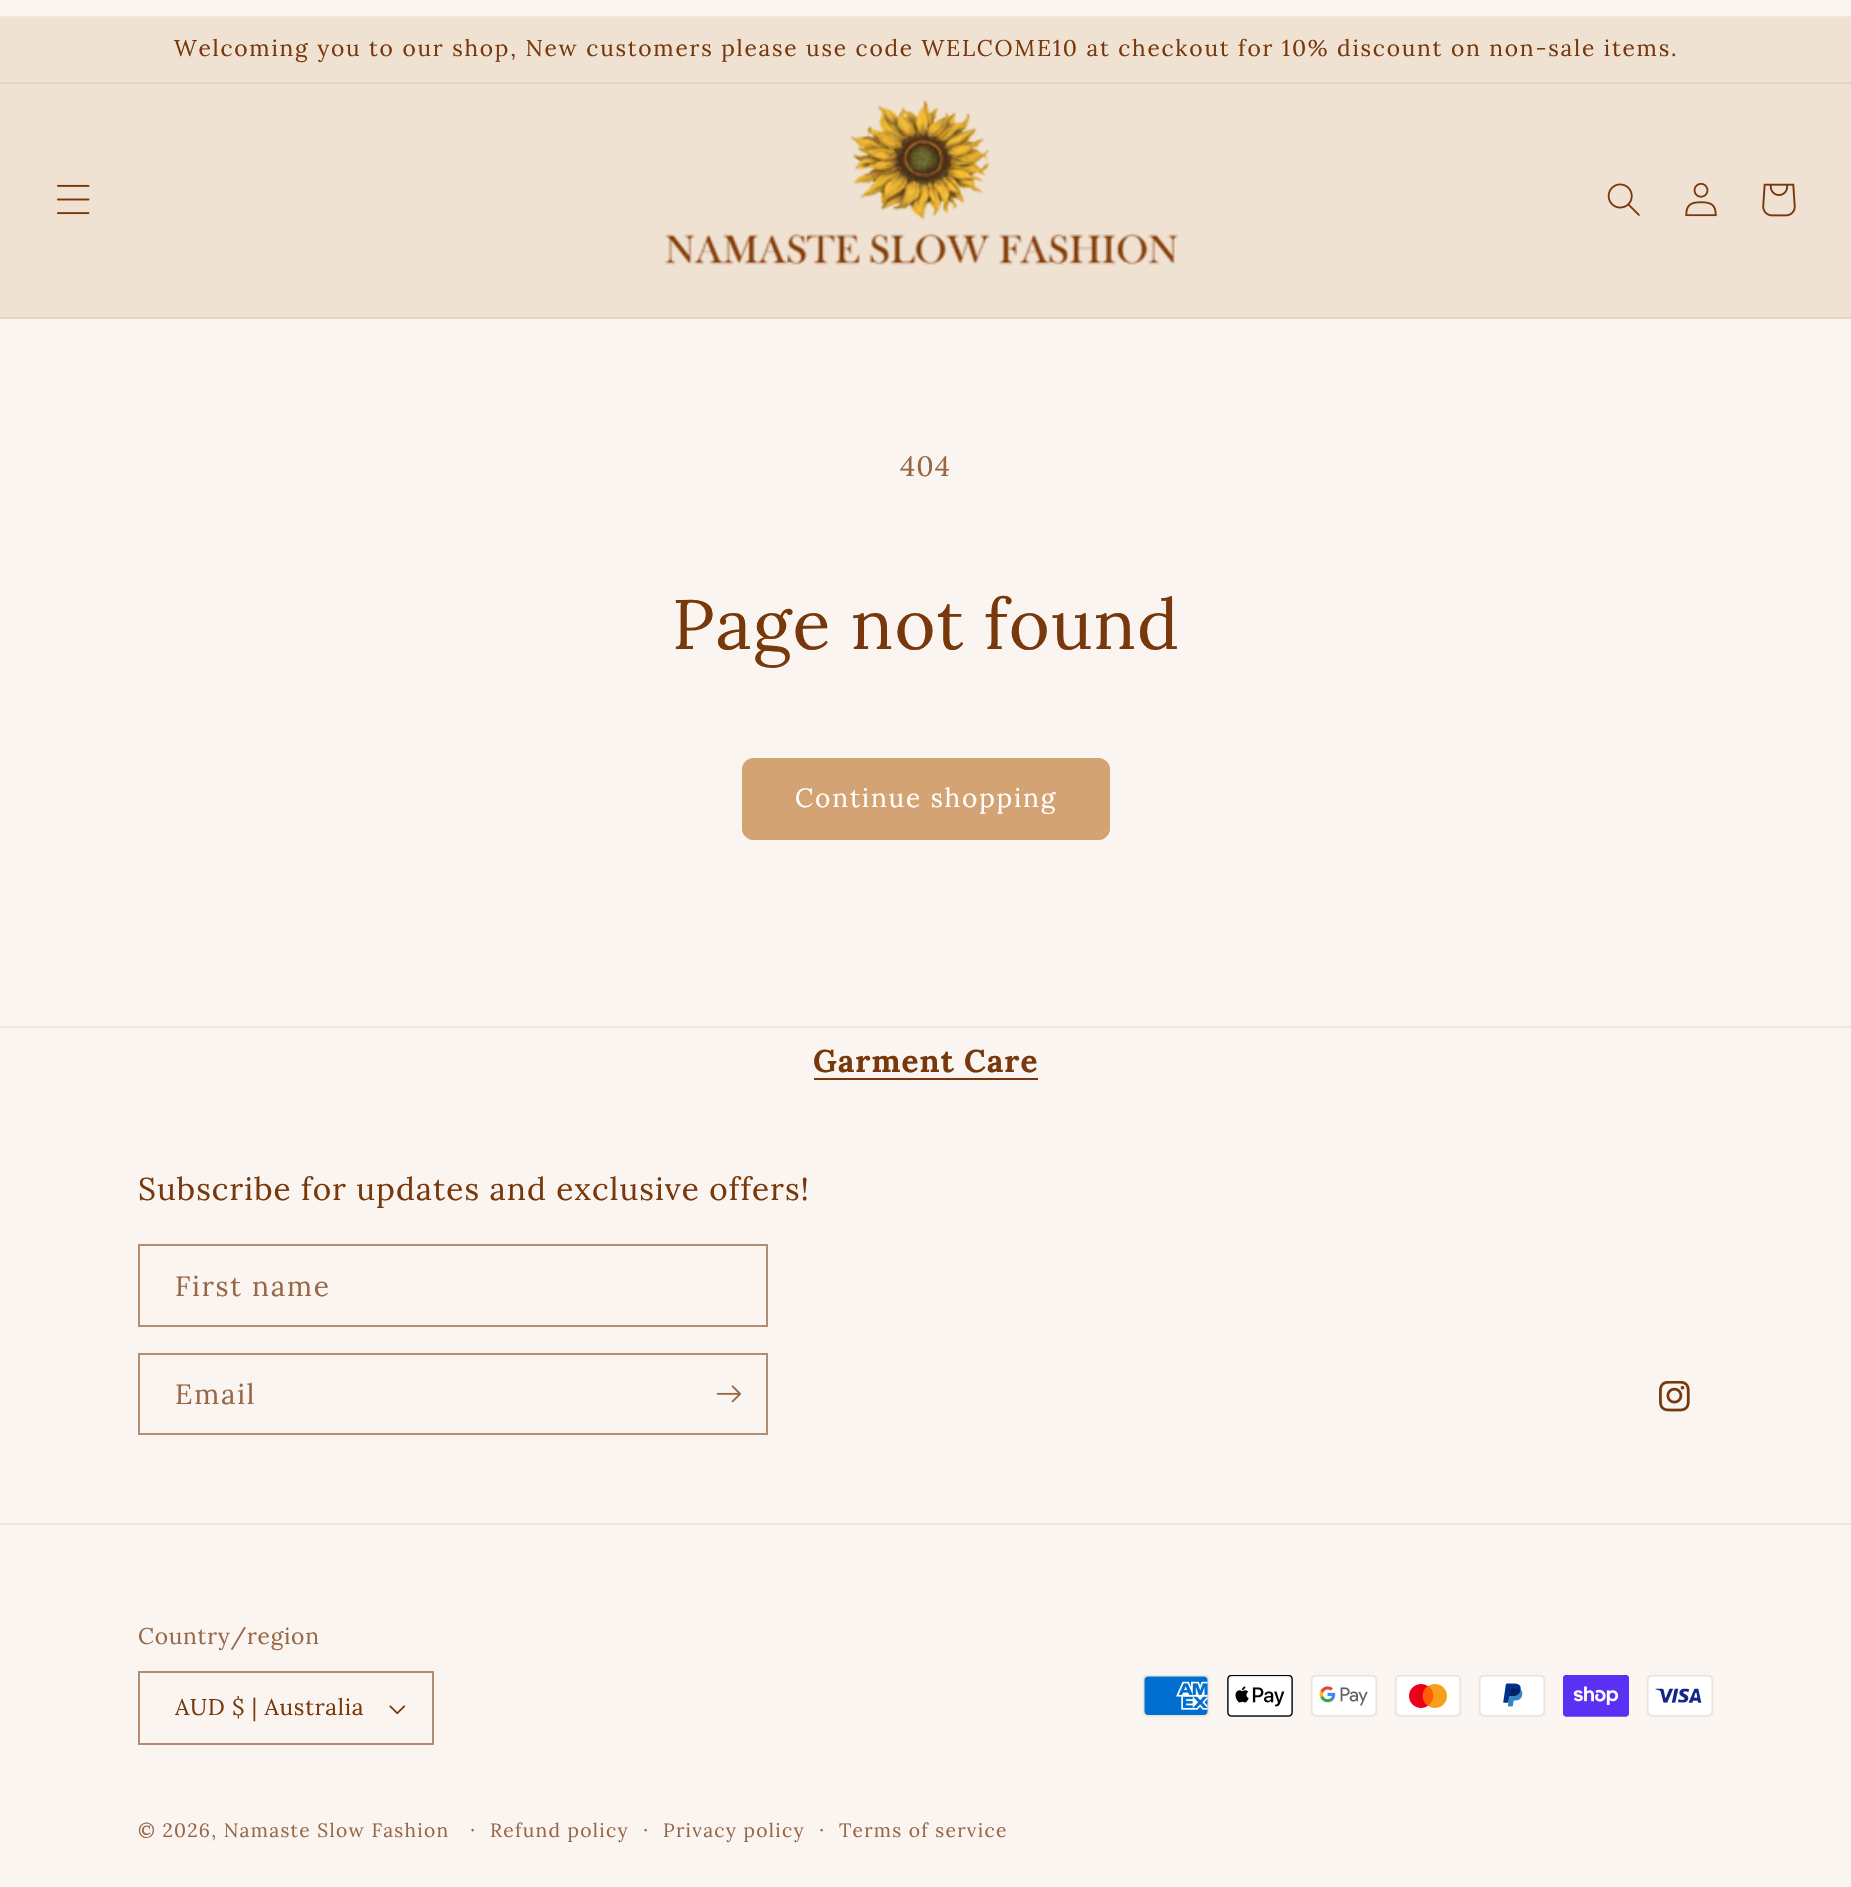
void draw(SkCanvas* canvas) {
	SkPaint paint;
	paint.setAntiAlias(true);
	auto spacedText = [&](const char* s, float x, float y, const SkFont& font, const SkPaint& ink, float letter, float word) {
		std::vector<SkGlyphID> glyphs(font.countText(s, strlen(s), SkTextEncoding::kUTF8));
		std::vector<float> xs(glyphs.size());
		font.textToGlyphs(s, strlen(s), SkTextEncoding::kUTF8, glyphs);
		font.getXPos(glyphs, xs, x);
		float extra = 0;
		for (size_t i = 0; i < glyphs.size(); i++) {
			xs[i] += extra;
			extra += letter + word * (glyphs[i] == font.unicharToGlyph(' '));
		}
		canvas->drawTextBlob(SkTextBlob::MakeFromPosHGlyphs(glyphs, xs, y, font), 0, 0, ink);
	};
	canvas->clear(0xfffaf5f0);
	paint.setColor(0xfff0e6de);
	canvas->drawRect(SkRect::MakeXYWH(0, 16, 1851, 2), paint);
	paint.setColor(0xfff0e2d3);
	canvas->drawRect(SkRect::MakeXYWH(0, 18, 1851, 64), paint);
	paint.setColor(0xffe6d4c3);
	canvas->drawRect(SkRect::MakeXYWH(0, 82, 1851, 2), paint);
	SkFont f1(fontMgr->matchFamilyStyle("Lora", SkFontStyle::Normal()), 22.75);
	f1.setSubpixel(true);
	paint.setColor(0xff78380c);
	spacedText("Welcoming you to our shop, New customers please use code WELCOME10 at checkout for 10% discount on non-sale items.", 174, 56, f1, paint, 1.75, 0);
	paint.setColor(0xfff0e2d3);
	canvas->drawRect(SkRect::MakeXYWH(0, 84, 1851, 233), paint);
	paint.setColor(0xffe6d4c3);
	canvas->drawRect(SkRect::MakeXYWH(0, 317, 1851, 2), paint);
	canvas->drawImageRect(SkImages::DeferredFromEncodedData(SkData::MakeFromFileName("img1.png")), SkRect::MakeXYWH(57, 184, 33, 31), SkSamplingOptions());
	canvas->drawImageRect(SkImages::DeferredFromEncodedData(SkData::MakeFromFileName("img2.png")), SkRect::MakeXYWH(664, 99, 515, 166), SkSamplingOptions());
	canvas->drawImageRect(SkImages::DeferredFromEncodedData(SkData::MakeFromFileName("img3.png")), SkRect::MakeXYWH(1607, 183, 33, 33), SkSamplingOptions());
	canvas->drawImageRect(SkImages::DeferredFromEncodedData(SkData::MakeFromFileName("img4.png")), SkRect::MakeXYWH(1685, 182, 32, 35), SkSamplingOptions());
	canvas->drawImageRect(SkImages::DeferredFromEncodedData(SkData::MakeFromFileName("img5.png")), SkRect::MakeXYWH(1762, 183, 34, 34), SkSamplingOptions());
	SkFont f2(fontMgr->matchFamilyStyle("Lora", SkFontStyle::Normal()), 28);
	f2.setSubpixel(true);
	paint.setColor(0xff996745);
	spacedText("404", 900, 476, f2, paint, 1.05, 0);
	SkFont f3(fontMgr->matchFamilyStyle("Lora", SkFontStyle::Normal()), 70);
	f3.setSubpixel(true);
	paint.setColor(0xff78380c);
	spacedText("Page not found", 672, 649, f3, paint, 1.05, 0);
	paint.setColor(0xffd4a373);
	canvas->drawRoundRect(SkRect::MakeXYWH(742, 758, 368, 82), 12, 12, paint);
	paint.setStroke(true);
	paint.setStrokeWidth(2);
	canvas->drawRoundRect(SkRect::MakeXYWH(743, 759, 366, 80), 11, 11, paint);
	SkFont f4(fontMgr->matchFamilyStyle("Lora", SkFontStyle::Normal()), 26.25);
	f4.setSubpixel(true);
	paint.setStroke(false);
	paint.setColor(0xffffffff);
	spacedText("Continue shopping", 795, 807, f4, paint, 1.75, 0);
	paint.setColor(0xfff0e6de);
	canvas->drawRect(SkRect::MakeXYWH(0, 1026, 1851, 2), paint);
	SkFont f5(fontMgr->matchFamilyStyle("Lora", SkFontStyle::Bold()), 31.5);
	f5.setSubpixel(true);
	paint.setColor(0xff78380c);
	spacedText("Garment Care", 813, 1072, f5, paint, 1.05, 0);
	canvas->drawRect(SkRect::MakeXYWH(814, 1078, 224, 2), paint);
	SkFont f6(fontMgr->matchFamilyStyle("Lora", SkFontStyle::Normal()), 31.5);
	f6.setSubpixel(true);
	spacedText("Subscribe for updates and exclusive offers!", 138, 1200, f6, paint, 1.05, 0);
	paint.setStroke(true);
	paint.setColor(0xffb38d73);
	canvas->drawRect(SkRect::MakeXYWH(139, 1245, 628, 81), paint);
	paint.setStroke(false);
	paint.setColor(0xff996745);
	spacedText("First name", 175, 1296, f2, paint, 1.75, 0);
	paint.setStroke(true);
	paint.setColor(0xffb38d73);
	canvas->drawRect(SkRect::MakeXYWH(139, 1354, 628, 80), paint);
	paint.setStroke(false);
	paint.setColor(0xff996745);
	spacedText("Email", 175, 1404, f2, paint, 1.75, 0);
	canvas->drawImageRect(SkImages::DeferredFromEncodedData(SkData::MakeFromFileName("img6.png")), SkRect::MakeXYWH(716, 1385, 25, 18), SkSamplingOptions());
	canvas->drawImageRect(SkImages::DeferredFromEncodedData(SkData::MakeFromFileName("img7.png")), SkRect::MakeXYWH(1659, 1381, 31, 31), SkSamplingOptions());
	paint.setColor(0xfff0e6de);
	canvas->drawRect(SkRect::MakeXYWH(0, 1523, 1851, 2), paint);
	paint.setColor(0xff996745);
	spacedText("Country/region", 138, 1644, f1, paint, 0.75, 0);
	canvas->drawImageRect(SkImages::DeferredFromEncodedData(SkData::MakeFromFileName("img8.png")), SkRect::MakeXYWH(389, 1705, 17, 10), SkSamplingOptions());
	paint.setStroke(true);
	paint.setColor(0xffb38d73);
	canvas->drawRect(SkRect::MakeXYWH(139, 1672, 294, 72), paint);
	paint.setStroke(false);
	paint.setColor(0xff78380c);
	spacedText("AUD $ | Australia", 175, 1715, f1, paint, 0.75, 0);
	canvas->drawImageRect(SkImages::DeferredFromEncodedData(SkData::MakeFromFileName("img9.png")), SkRect::MakeXYWH(1143, 1675, 66, 42), SkSamplingOptions());
	canvas->drawImageRect(SkImages::DeferredFromEncodedData(SkData::MakeFromFileName("img10.png")), SkRect::MakeXYWH(1227, 1675, 66, 42), SkSamplingOptions());
	canvas->drawImageRect(SkImages::DeferredFromEncodedData(SkData::MakeFromFileName("img11.png")), SkRect::MakeXYWH(1311, 1675, 66, 42), SkSamplingOptions());
	canvas->drawImageRect(SkImages::DeferredFromEncodedData(SkData::MakeFromFileName("img12.png")), SkRect::MakeXYWH(1395, 1675, 66, 42), SkSamplingOptions());
	canvas->drawImageRect(SkImages::DeferredFromEncodedData(SkData::MakeFromFileName("img13.png")), SkRect::MakeXYWH(1479, 1675, 66, 42), SkSamplingOptions());
	canvas->drawImageRect(SkImages::DeferredFromEncodedData(SkData::MakeFromFileName("img14.png")), SkRect::MakeXYWH(1563, 1675, 66, 42), SkSamplingOptions());
	canvas->drawImageRect(SkImages::DeferredFromEncodedData(SkData::MakeFromFileName("img15.png")), SkRect::MakeXYWH(1647, 1675, 66, 42), SkSamplingOptions());
	SkFont f7(fontMgr->matchFamilyStyle("Lora", SkFontStyle::Normal()), 19.25);
	f7.setSubpixel(true);
	paint.setColor(0xff996745);
	spacedText("© 2026, Namaste Slow Fashion", 138, 1837, f7, paint, 1.25, 0);
	SkFont f8(fontMgr->matchFamilyStyle("Lora", SkFontStyle::Normal()), 21);
	f8.setSubpixel(true);
	spacedText("·", 470, 1837, f8, paint, 1.25, 0);
	spacedText("Refund policy", 490, 1837, f7, paint, 1.25, 0);
	spacedText("·", 643, 1837, f8, paint, 1.25, 0);
	spacedText("Privacy policy", 663, 1837, f7, paint, 1.25, 0);
	spacedText("·", 819, 1837, f8, paint, 1.25, 0);
	spacedText("Terms of service", 839, 1837, f7, paint, 1.25, 0);
}
